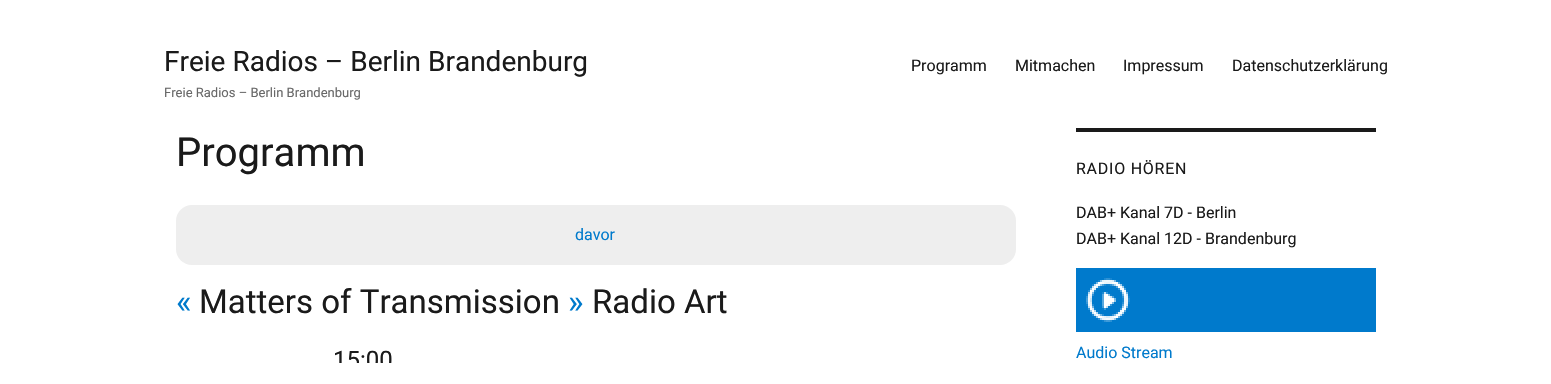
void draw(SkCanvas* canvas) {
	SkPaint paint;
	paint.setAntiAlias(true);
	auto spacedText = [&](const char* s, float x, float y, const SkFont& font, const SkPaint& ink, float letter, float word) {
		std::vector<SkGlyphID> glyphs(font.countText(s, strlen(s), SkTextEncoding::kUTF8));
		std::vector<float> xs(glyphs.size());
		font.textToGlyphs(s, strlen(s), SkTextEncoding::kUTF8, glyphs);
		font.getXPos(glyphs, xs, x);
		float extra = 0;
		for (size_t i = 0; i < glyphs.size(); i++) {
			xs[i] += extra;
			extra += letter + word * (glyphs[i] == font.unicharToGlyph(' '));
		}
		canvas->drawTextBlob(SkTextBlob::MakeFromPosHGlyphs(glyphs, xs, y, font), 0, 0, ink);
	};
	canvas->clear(0xffffffff);
	SkFont f1(fontMgr->matchFamilyStyle("Roboto", SkFontStyle::Normal()), 28);
	f1.setSubpixel(true);
	paint.setColor(0xff1a1a1a);
	canvas->drawString("Freie Radios – Berlin Brandenburg", 164, 71, f1, paint);
	SkFont f2(fontMgr->matchFamilyStyle("Roboto", SkFontStyle::Normal()), 13);
	f2.setSubpixel(true);
	paint.setColor(0xff686868);
	canvas->drawString("Freie Radios – Berlin Brandenburg", 164, 97, f2, paint);
	SkFont f3(fontMgr->matchFamilyStyle("Roboto", SkFontStyle::Normal()), 16);
	f3.setSubpixel(true);
	paint.setColor(0xff1a1a1a);
	canvas->drawString("Programm", 911, 71, f3, paint);
	canvas->drawString("Mitmachen", 1015, 71, f3, paint);
	canvas->drawString("Impressum", 1123, 71, f3, paint);
	canvas->drawString("Datenschutzerklärung", 1232, 71, f3, paint);
	SkFont f4(fontMgr->matchFamilyStyle("Roboto", SkFontStyle::Normal()), 40);
	f4.setSubpixel(true);
	canvas->drawString("Programm", 176, 166, f4, paint);
	paint.setColor(0xffeeeeee);
	canvas->drawRoundRect(SkRect::MakeXYWH(176, 205, 840, 60), 16, 16, paint);
	paint.setColor(0xff007acc);
	canvas->drawString("davor", 575, 240, f3, paint);
	SkFont f5(fontMgr->matchFamilyStyle("Roboto", SkFontStyle::Normal()), 33);
	f5.setSubpixel(true);
	canvas->drawString("«", 176, 313, f5, paint);
	paint.setColor(0xff1a1a1a);
	canvas->drawString("Matters of Transmission", 199, 313, f5, paint);
	paint.setColor(0xff007acc);
	canvas->drawString("»", 568, 313, f5, paint);
	paint.setColor(0xff1a1a1a);
	canvas->drawString("Radio Art", 592, 313, f5, paint);
	SkFont f6(fontMgr->matchFamilyStyle("Roboto", SkFontStyle::Normal()), 24);
	f6.setSubpixel(true);
	canvas->drawString("15:00", 333, 368, f6, paint);
	canvas->drawRect(SkRect::MakeXYWH(1076, 128, 300, 4), paint);
	spacedText("RADIO HÖREN", 1076, 174, f3, paint, 0.75, 0);
	canvas->drawString("DAB+ Kanal 7D - Berlin", 1076, 218, f3, paint);
	canvas->drawString("DAB+ Kanal 12D - Brandenburg", 1076, 244, f3, paint);
	canvas->drawImageRect(SkImages::DeferredFromEncodedData(SkData::MakeFromFileName("img1.png")), SkRect::MakeXYWH(1076, 268, 300, 64), SkSamplingOptions());
	paint.setColor(0xff007acc);
	canvas->drawString("Audio Stream", 1076, 358, f3, paint);
	paint.setColor(0xffffffff);
	canvas->drawRect(SkRect::MakeXYWH(339, 363, 53, 6), paint);
}
